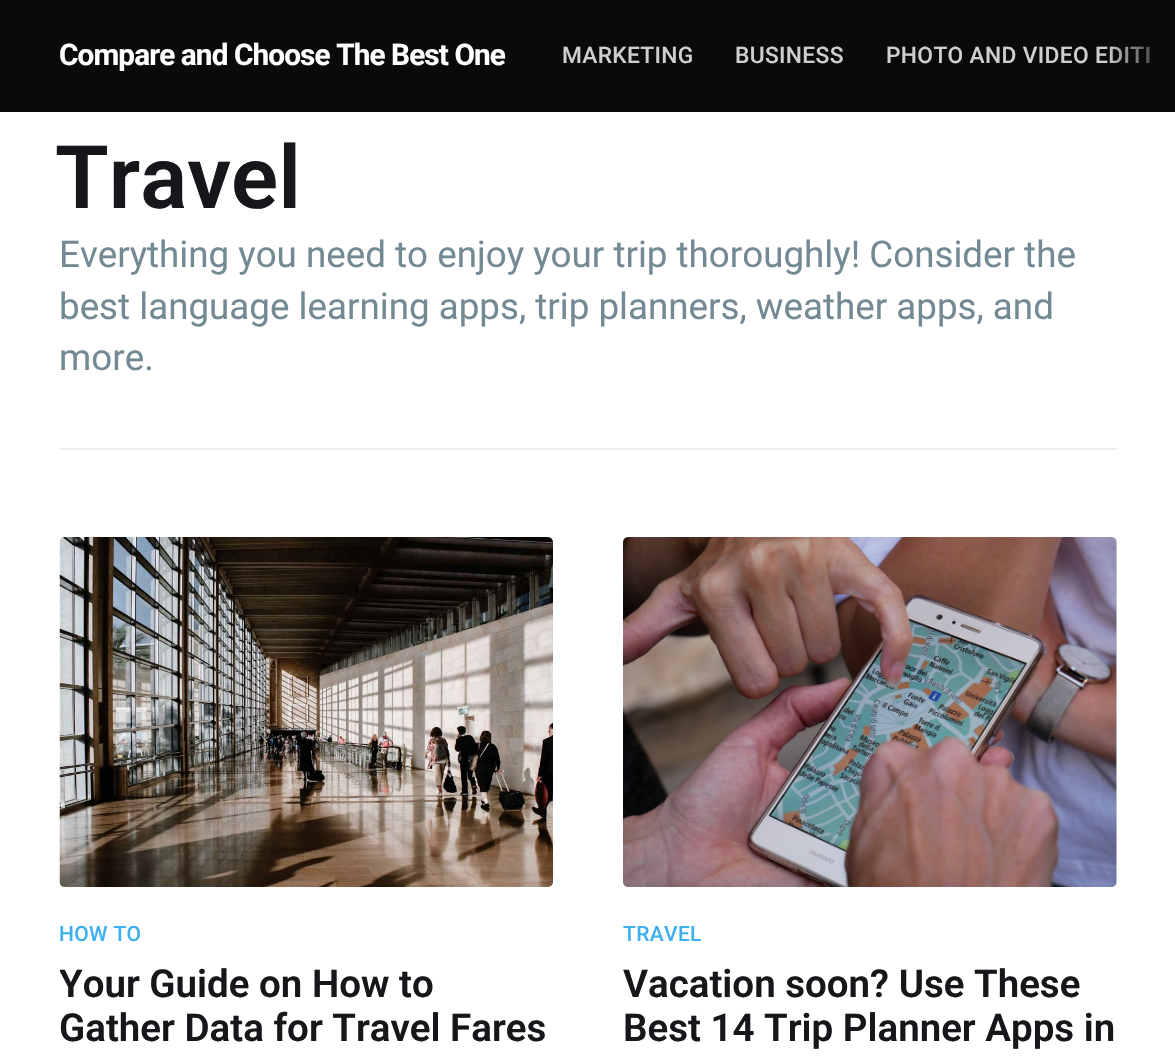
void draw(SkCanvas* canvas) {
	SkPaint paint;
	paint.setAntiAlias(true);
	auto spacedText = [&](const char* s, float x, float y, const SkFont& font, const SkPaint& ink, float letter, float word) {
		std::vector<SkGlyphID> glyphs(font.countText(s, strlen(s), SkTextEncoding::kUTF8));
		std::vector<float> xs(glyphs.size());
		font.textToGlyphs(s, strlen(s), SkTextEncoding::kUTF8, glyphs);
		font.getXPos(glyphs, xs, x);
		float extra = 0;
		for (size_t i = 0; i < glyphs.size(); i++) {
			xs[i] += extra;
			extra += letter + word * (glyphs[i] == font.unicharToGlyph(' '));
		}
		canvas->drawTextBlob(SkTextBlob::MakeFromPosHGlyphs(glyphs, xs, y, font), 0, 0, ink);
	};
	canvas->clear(0xffffffff);
	paint.setColor(0xff090a0b);
	canvas->drawRect(SkRect::MakeXYWH(0, 0, 1175, 112), paint);
	SkFont f1(fontMgr->matchFamilyStyle("Roboto", SkFontStyle::Bold()), 29.75);
	f1.setSubpixel(true);
	paint.setColor(0xffffffff);
	spacedText("Compare and Choose The Best One", 59, 65, f1, paint, -0.9, 0);
	SkFont f2(fontMgr->matchFamilyStyle("Roboto", SkFontStyle(500, SkFontStyle::kNormal_Width, SkFontStyle::kUpright_Slant)), 22.75);
	f2.setSubpixel(true);
	paint.setColor(0xffcecece);
	spacedText("MARKETING", 562, 63, f2, paint, 0.35, 0);
	spacedText("BUSINESS", 735, 63, f2, paint, 0.35, 0);
	spacedText("PHOTO AND VIDEO EDITI", 886, 63, f2, paint, 0.35, 0);
	{
		const SkColor colors[] = {0x00090a0b, 0xff090a0b};
		const float stops[] = {0, 1};
		const SkPoint ends[] = {{1106, 116}, {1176, 116}};
		paint.setShader(SkGradientShader::MakeLinear(ends, colors, stops, 2, SkTileMode::kClamp));
		paint.setAlpha(255);
	}
	canvas->drawRect(SkRect::MakeXYWH(1110, 46, 39, 17), paint);
	paint.setShader(nullptr);
	paint.setColor(0xffe9eef1);
	canvas->drawRect(SkRect::MakeXYWH(60, 448, 1057, 2), paint);
	SkFont f3(fontMgr->matchFamilyStyle("Roboto", SkFontStyle(600, SkFontStyle::kNormal_Width, SkFontStyle::kUpright_Slant)), 87.5);
	f3.setSubpixel(true);
	paint.setColor(0xff15171a);
	canvas->drawString("Travel", 55, 208, f3, paint);
	SkFont f4(fontMgr->matchFamilyStyle("Roboto", SkFontStyle::Normal()), 36.75);
	f4.setSubpixel(true);
	paint.setColor(0xff738a94);
	canvas->drawString("Everything you need to enjoy your trip thoroughly! Consider the", 59, 267, f4, paint);
	canvas->drawString("best language learning apps, trip planners, weather apps, and", 59, 319, f4, paint);
	canvas->drawString("more.", 59, 370, f4, paint);
	paint.setColor(0xffc5d2d9);
	canvas->drawRoundRect(SkRect::MakeXYWH(60, 537, 493, 350), 5, 5, paint);
	canvas->drawImageRect(SkImages::DeferredFromEncodedData(SkData::MakeFromFileName("img1.png")), SkRect::MakeXYWH(59, 537, 494, 350), SkSamplingOptions());
	SkFont f5(fontMgr->matchFamilyStyle("Roboto", SkFontStyle(500, SkFontStyle::kNormal_Width, SkFontStyle::kUpright_Slant)), 21);
	f5.setSubpixel(true);
	paint.setColor(0xff3eb0ef);
	spacedText("HOW TO", 59, 941, f5, paint, 0.35, 0);
	canvas->save();
	canvas->clipRect(SkRect::MakeXYWH(60, 537, 528, 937));
	SkFont f6(fontMgr->matchFamilyStyle("Roboto", SkFontStyle(600, SkFontStyle::kNormal_Width, SkFontStyle::kUpright_Slant)), 38.5);
	f6.setSubpixel(true);
	paint.setColor(0xff15171a);
	canvas->drawString("Your Guide on How to", 59, 997, f6, paint);
	canvas->restore();
	canvas->drawString("Gather Data for Travel Fares", 59, 1041, f6, paint);
	paint.setColor(0xffc5d2d9);
	canvas->drawRoundRect(SkRect::MakeXYWH(623, 537, 494, 350), 5, 5, paint);
	canvas->drawImageRect(SkImages::DeferredFromEncodedData(SkData::MakeFromFileName("img2.png")), SkRect::MakeXYWH(623, 537, 494, 350), SkSamplingOptions());
	paint.setColor(0xff3eb0ef);
	spacedText("TRAVEL", 623, 941, f5, paint, 0.35, 0);
	paint.setColor(0xff15171a);
	canvas->drawString("Vacation soon? Use These", 623, 997, f6, paint);
	canvas->drawString("Best 14 Trip Planner Apps in", 623, 1041, f6, paint);
}
